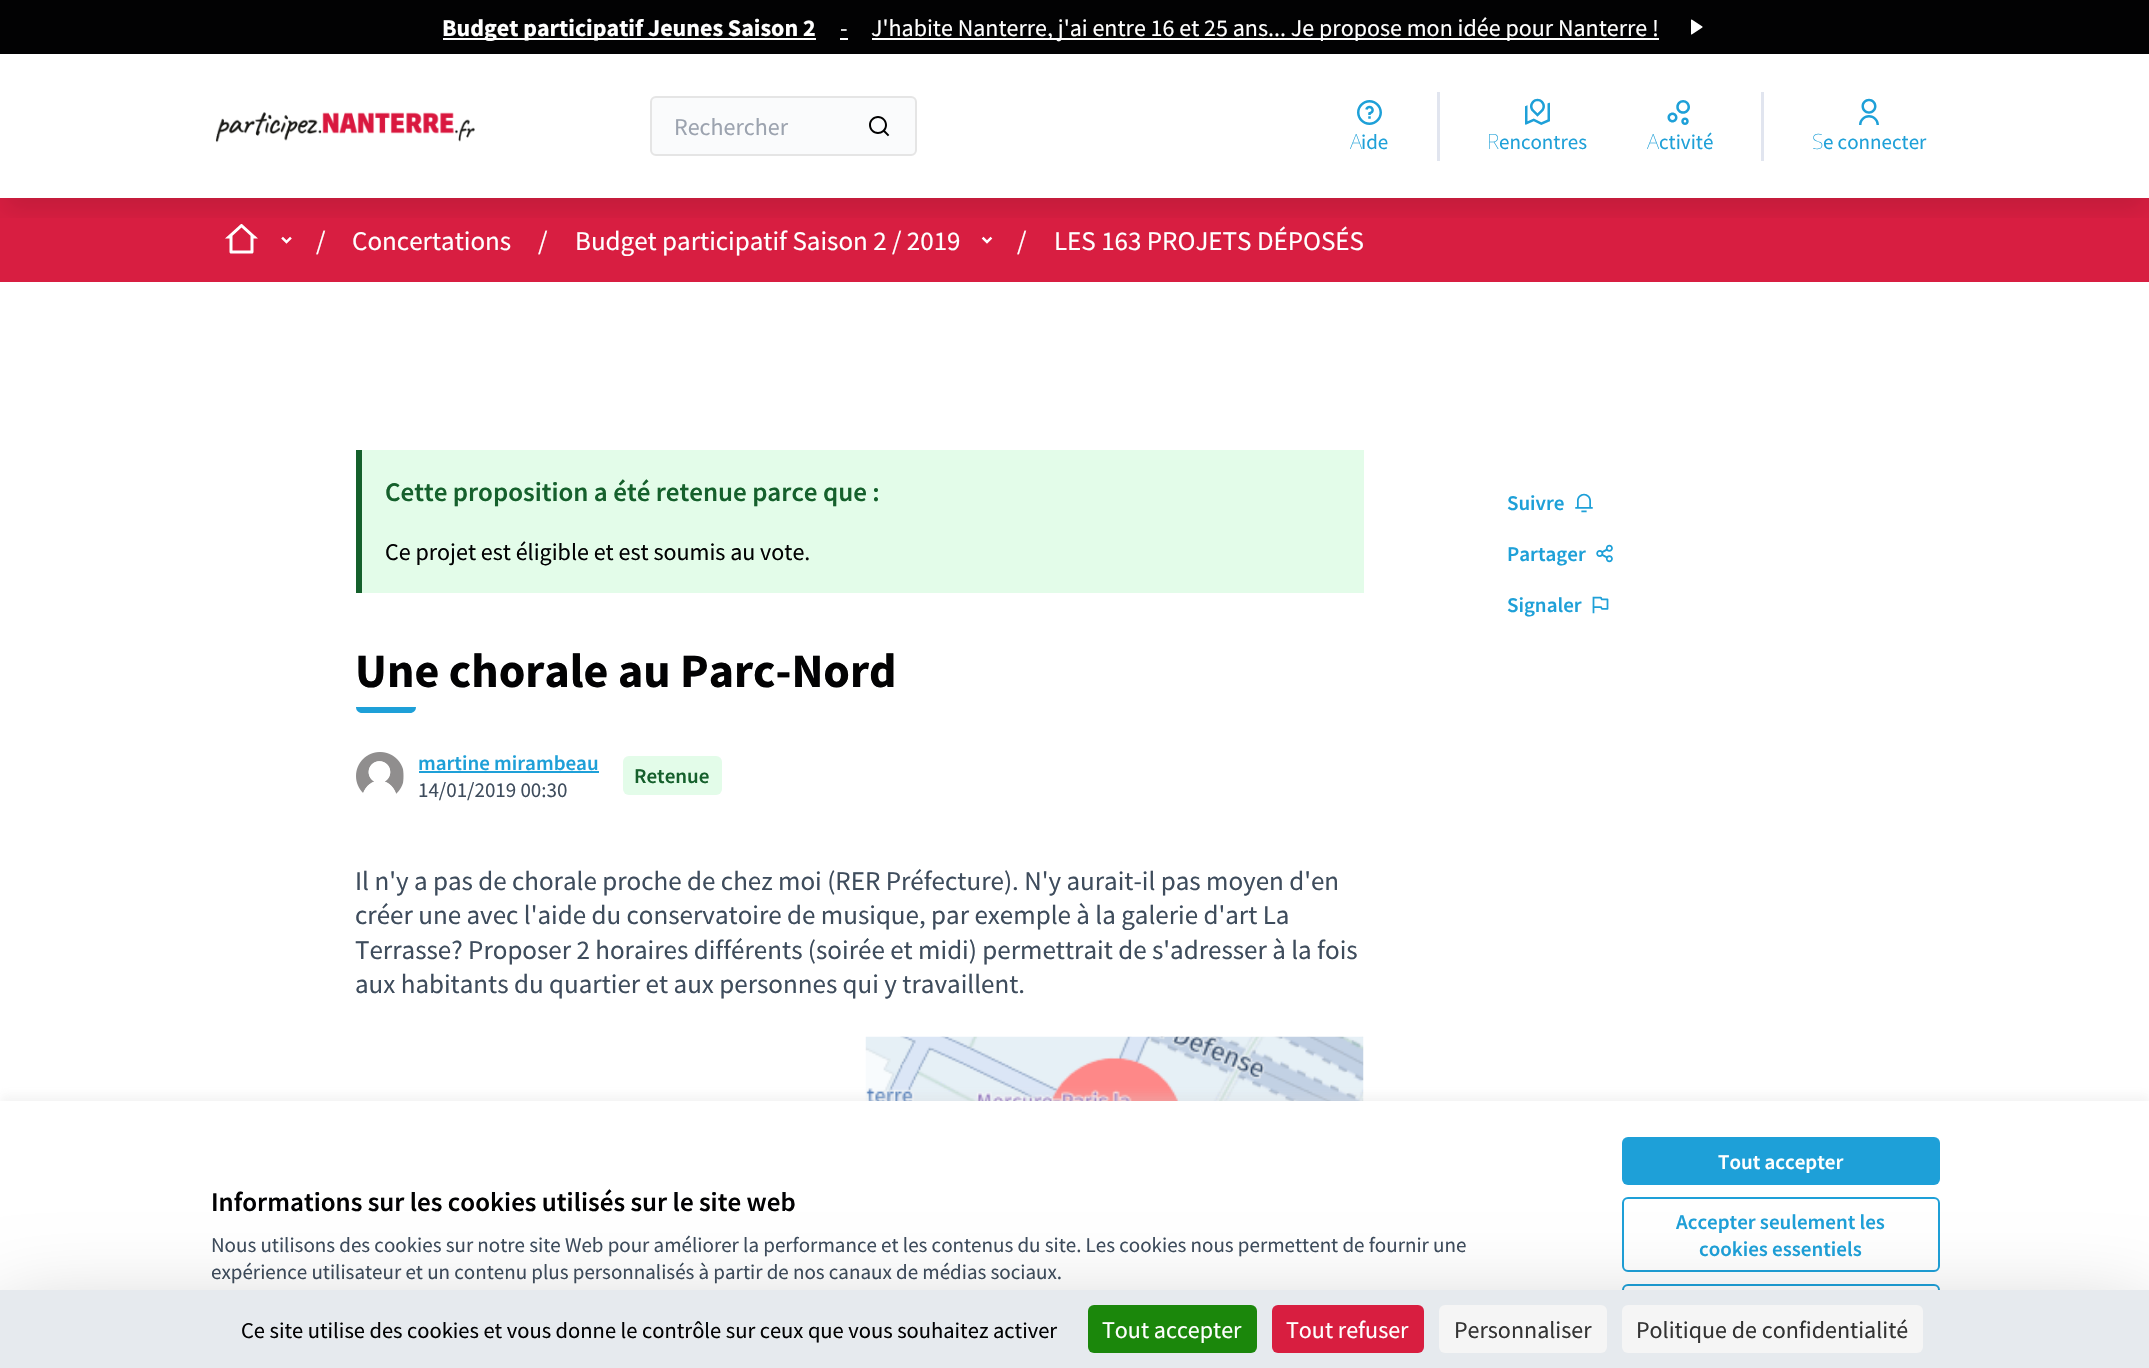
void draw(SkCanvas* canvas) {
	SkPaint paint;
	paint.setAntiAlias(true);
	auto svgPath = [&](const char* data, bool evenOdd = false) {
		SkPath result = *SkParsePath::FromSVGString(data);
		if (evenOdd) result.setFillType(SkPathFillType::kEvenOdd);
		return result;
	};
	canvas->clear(0xffffffff);
	paint.setColor(0xffd81e41);
	canvas->drawRect(SkRect::MakeXYWH(0, 198, 2149, 84), paint);
	canvas->drawImageRect(SkImages::DeferredFromEncodedData(SkData::MakeFromFileName("img8.png")), SkRect::MakeXYWH(225, 224, 33, 30), SkSamplingOptions());
	canvas->drawImageRect(SkImages::DeferredFromEncodedData(SkData::MakeFromFileName("img9.png")), SkRect::MakeXYWH(281, 236, 11, 8), SkSamplingOptions());
	canvas->drawImageRect(SkImages::DeferredFromEncodedData(SkData::MakeFromFileName("img10.png")), SkRect::MakeXYWH(981, 236, 12, 8), SkSamplingOptions());
	canvas->save();
	canvas->clipRect(SkRect::MakeXYWH(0, 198, 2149, 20));
	paint.setColor(0x1a000000);
	paint.setMaskFilter(SkMaskFilter::MakeBlur(kNormal_SkBlurStyle, 11));
	canvas->drawRect(SkRect::MakeXYWH(5, 20, 2140, 189), paint);
	paint.setMaskFilter(nullptr);
	canvas->restore();
	paint.setColor(0xff020203);
	canvas->drawRect(SkRect::MakeXYWH(0, 0, 2149, 54), paint);
	paint.setColor(0xffffffff);
	canvas->drawRect(SkRect::MakeXYWH(443, 38, 373, 2), paint);
	SkFont f1(fontMgr->matchFamilyStyle("Source Sans Pro", SkFontStyle::Bold()), 24);
	f1.setSubpixel(true);
	canvas->drawString("Budget participatif Jeunes Saison 2", 442, 36, f1, paint);
	SkFont f2(fontMgr->matchFamilyStyle("Source Sans Pro", SkFontStyle::Normal()), 24);
	f2.setSubpixel(true);
	canvas->drawString("-", 840, 36, f2, paint);
	canvas->drawRect(SkRect::MakeXYWH(840, 38, 8, 2), paint);
	canvas->drawRect(SkRect::MakeXYWH(872, 38, 787, 2), paint);
	canvas->drawString("J'habite Nanterre, j'ai entre 16 et 25 ans... Je propose mon idée pour Nanterre !", 871, 36, f2, paint);
	canvas->drawImageRect(SkImages::DeferredFromEncodedData(SkData::MakeFromFileName("img1.png")), SkRect::MakeXYWH(1691, 19, 12, 16), SkSamplingOptions());
	canvas->drawImageRect(SkImages::DeferredFromEncodedData(SkData::MakeFromFileName("img2.png")), SkRect::MakeXYWH(215, 112, 260, 31), SkSamplingOptions());
	paint.setColor(0xfffafbfc);
	canvas->drawRoundRect(SkRect::MakeXYWH(651, 97, 265, 58), 5, 5, paint);
	paint.setStroke(true);
	paint.setStrokeWidth(2);
	paint.setColor(0xffe5e5e5);
	canvas->drawRoundRect(SkRect::MakeXYWH(651, 97, 265, 58), 5, 5, paint);
	paint.setStroke(false);
	paint.setColor(0xff9ca3af);
	canvas->drawString("Rechercher", 674, 135, f2, paint);
	canvas->drawImageRect(SkImages::DeferredFromEncodedData(SkData::MakeFromFileName("img3.png")), SkRect::MakeXYWH(869, 116, 21, 21), SkSamplingOptions());
	canvas->drawImageRect(SkImages::DeferredFromEncodedData(SkData::MakeFromFileName("img4.png")), SkRect::MakeXYWH(1357, 100, 25, 25), SkSamplingOptions());
	SkFont f3(fontMgr->matchFamilyStyle("Noto Sans", SkFontStyle(100, SkFontStyle::kNormal_Width, SkFontStyle::kUpright_Slant)), 21);
	f3.setSubpixel(true);
	paint.setColor(0xff1ea0d8);
	canvas->drawString("A", 1350, 149, f3, paint);
	SkFont f4(fontMgr->matchFamilyStyle("Source Sans Pro", SkFontStyle::Normal()), 21);
	f4.setSubpixel(true);
	canvas->drawString("ide", 1361, 149, f4, paint);
	paint.setColor(0xffe1e5ef);
	canvas->drawRect(SkRect::MakeXYWH(1437, 92, 3, 69), paint);
	canvas->drawImageRect(SkImages::DeferredFromEncodedData(SkData::MakeFromFileName("img5.png")), SkRect::MakeXYWH(1525, 98, 25, 27), SkSamplingOptions());
	paint.setColor(0xff1ea0d8);
	canvas->drawString("R", 1487, 149, f3, paint);
	canvas->drawString("encontres", 1499, 149, f4, paint);
	canvas->drawImageRect(SkImages::DeferredFromEncodedData(SkData::MakeFromFileName("img6.png")), SkRect::MakeXYWH(1667, 100, 23, 25), SkSamplingOptions());
	canvas->drawString("A", 1647, 149, f3, paint);
	canvas->drawString("ctivité", 1659, 149, f4, paint);
	paint.setColor(0xffe1e5ef);
	canvas->drawRect(SkRect::MakeXYWH(1761, 92, 3, 69), paint);
	canvas->drawImageRect(SkImages::DeferredFromEncodedData(SkData::MakeFromFileName("img7.png")), SkRect::MakeXYWH(1859, 98, 20, 27), SkSamplingOptions());
	paint.setColor(0xff1ea0d8);
	canvas->drawString("S", 1812, 149, f3, paint);
	canvas->drawString("e connecter", 1823, 149, f4, paint);
	SkFont f5(fontMgr->matchFamilyStyle("Source Sans Pro", SkFontStyle::Normal()), 27);
	f5.setSubpixel(true);
	paint.setColor(0xffffffff);
	canvas->drawString("/", 316, 250, f5, paint);
	canvas->drawString("Concertations", 352, 250, f5, paint);
	canvas->drawString("/", 538, 250, f5, paint);
	canvas->drawString("Budget participatif Saison 2 / 2019", 575, 250, f5, paint);
	canvas->drawString("/", 1017, 250, f5, paint);
	canvas->drawString("LES 163 PROJETS DÉPOSÉS", 1054, 250, f5, paint);
	paint.setColor(0xffe3fce9);
	canvas->drawRect(SkRect::MakeXYWH(362, 450, 1002, 143), paint);
	paint.setColor(0xff15602c);
	canvas->drawRect(SkRect::MakeXYWH(356, 450, 6, 143), paint);
	SkFont f6(fontMgr->matchFamilyStyle("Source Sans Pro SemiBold", SkFontStyle(600, SkFontStyle::kNormal_Width, SkFontStyle::kUpright_Slant)), 27);
	f6.setSubpixel(true);
	canvas->drawString("Cette proposition a été retenue parce que :", 385, 501, f6, paint);
	paint.setColor(0xff020203);
	canvas->drawString("Ce projet est éligible et est soumis au vote.", 385, 560, f2, paint);
	SkFont f7(fontMgr->matchFamilyStyle("Source Sans Pro", SkFontStyle::Bold()), 48);
	f7.setSubpixel(true);
	canvas->drawString("Une chorale au Parc-Nord", 355, 687, f7, paint);
	paint.setColor(0xff1ea0d8);
	canvas->drawPath(svgPath("M356 707H416C416 710.5 413.5 713 410 713H362C358.5 713 356 710.5 356 707Z"), paint);
	canvas->drawImageRect(SkImages::DeferredFromEncodedData(SkData::MakeFromFileName("img11.png")), SkRect::MakeXYWH(356, 752, 48, 42), SkSamplingOptions());
	SkFont f8(fontMgr->matchFamilyStyle("Source Sans Pro SemiBold", SkFontStyle(600, SkFontStyle::kNormal_Width, SkFontStyle::kUpright_Slant)), 21);
	f8.setSubpixel(true);
	canvas->drawString("martine mirambeau", 418, 770, f8, paint);
	canvas->drawRect(SkRect::MakeXYWH(419, 771, 180, 2), paint);
	paint.setColor(0xff3e4c5c);
	canvas->drawString("14/01/2019 00:30", 418, 797, f4, paint);
	paint.setColor(0xffe3fce9);
	canvas->drawRoundRect(SkRect::MakeXYWH(623, 756, 99, 39), 6, 6, paint);
	paint.setColor(0xff15602c);
	canvas->drawString("Retenue", 634, 783, f8, paint);
	paint.setColor(0xff3e4c5c);
	canvas->drawString("Il n'y a pas de chorale proche de chez moi (RER Préfecture). N'y aurait-il pas moyen d'en", 355, 890, f5, paint);
	canvas->drawString("créer une avec l'aide du conservatoire de musique, par exemple à la galerie d'art La", 355, 924, f5, paint);
	canvas->drawString("Terrasse? Proposer 2 horaires différents (soirée et midi) permettrait de s'adresser à la fois", 355, 959, f5, paint);
	canvas->drawString("aux habitants du quartier et aux personnes qui y travaillent.", 355, 993, f5, paint);
	canvas->drawImageRect(SkImages::DeferredFromEncodedData(SkData::MakeFromFileName("img12.png")), SkRect::MakeXYWH(865, 1036, 499, 65), SkSamplingOptions());
	paint.setColor(0xff1ea0d8);
	canvas->drawString("Suivre", 1507, 510, f8, paint);
	canvas->drawImageRect(SkImages::DeferredFromEncodedData(SkData::MakeFromFileName("img13.png")), SkRect::MakeXYWH(1575, 493, 18, 20), SkSamplingOptions());
	canvas->drawString("Partager", 1507, 561, f8, paint);
	canvas->drawImageRect(SkImages::DeferredFromEncodedData(SkData::MakeFromFileName("img14.png")), SkRect::MakeXYWH(1596, 544, 17, 19), SkSamplingOptions());
	canvas->drawString("Signaler", 1507, 612, f8, paint);
	canvas->drawImageRect(SkImages::DeferredFromEncodedData(SkData::MakeFromFileName("img15.png")), SkRect::MakeXYWH(1592, 596, 17, 18), SkSamplingOptions());
	paint.setColor(0x40d3d3d3);
	paint.setMaskFilter(SkMaskFilter::MakeBlur(kNormal_SkBlurStyle, 4.5));
	canvas->drawRect(SkRect::MakeXYWH(0, 1095, 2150, 267), paint);
	paint.setMaskFilter(nullptr);
	paint.setColor(0xffffffff);
	canvas->drawRect(SkRect::MakeXYWH(0, 1101, 2149, 189), paint);
	paint.setColor(0xff020203);
	canvas->drawString("Informations sur les cookies utilisés sur le site web", 211, 1211, f6, paint);
	paint.setColor(0xff3e4c5c);
	canvas->drawString("Nous utilisons des cookies sur notre site Web pour améliorer la performance et les contenus du site. Les cookies nous permettent de fournir une", 211, 1252, f4, paint);
	canvas->drawString("expérience utilisateur et un contenu plus personnalisés à partir de nos canaux de médias sociaux.", 211, 1279, f4, paint);
	paint.setColor(0xff1ea0d8);
	canvas->drawRoundRect(SkRect::MakeXYWH(1622, 1137, 318, 48), 6, 6, paint);
	paint.setColor(0xffffffff);
	canvas->drawString("Tout accepter", 1718, 1169, f8, paint);
	paint.setStroke(true);
	paint.setColor(0xff1ea0d8);
	canvas->drawRoundRect(SkRect::MakeXYWH(1623, 1198, 316, 73), 5, 5, paint);
	paint.setStroke(false);
	canvas->drawString("Accepter seulement les", 1676, 1229, f8, paint);
	canvas->drawString("cookies essentiels", 1699, 1256, f8, paint);
	paint.setStroke(true);
	canvas->drawRoundRect(SkRect::MakeXYWH(1623, 1285, 316, 46), 5, 5, paint);
	paint.setStroke(false);
	paint.setColor(0x40000000);
	paint.setMaskFilter(SkMaskFilter::MakeBlur(kNormal_SkBlurStyle, 45));
	canvas->drawRect(SkRect::MakeXYWH(0, 1320, 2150, 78), paint);
	paint.setMaskFilter(nullptr);
	paint.setColor(0xffe6eaee);
	canvas->drawRect(SkRect::MakeXYWH(0, 1290, 2149, 78), paint);
	SkFont f9(fontMgr->matchFamilyStyle("Source Sans Pro", SkFontStyle::Normal()), 22.5);
	f9.setSubpixel(true);
	paint.setColor(0xff020203);
	canvas->drawString("Ce site utilise des cookies et vous donne le contrôle sur ceux que vous souhaitez activer", 241, 1338, f9, paint);
	paint.setColor(0xff1b870b);
	canvas->drawRoundRect(SkRect::MakeXYWH(1088, 1305, 169, 48), 6, 6, paint);
	paint.setColor(0xffffffff);
	canvas->drawString("Tout accepter", 1102, 1338, f2, paint);
	paint.setColor(0xffd81e40);
	canvas->drawRoundRect(SkRect::MakeXYWH(1272, 1305, 152, 48), 6, 6, paint);
	paint.setColor(0xffffffff);
	canvas->drawString("Tout refuser", 1286, 1338, f2, paint);
	paint.setColor(0xfff5f5f5);
	canvas->drawRoundRect(SkRect::MakeXYWH(1439, 1305, 168, 48), 6, 6, paint);
	paint.setColor(0xff333333);
	canvas->drawString("Personnaliser", 1454, 1338, f2, paint);
	paint.setColor(0xfff5f5f5);
	canvas->drawRoundRect(SkRect::MakeXYWH(1622, 1305, 301, 48), 6, 6, paint);
	paint.setColor(0xff333333);
	canvas->drawString("Politique de confidentialité", 1636, 1338, f2, paint);
}
